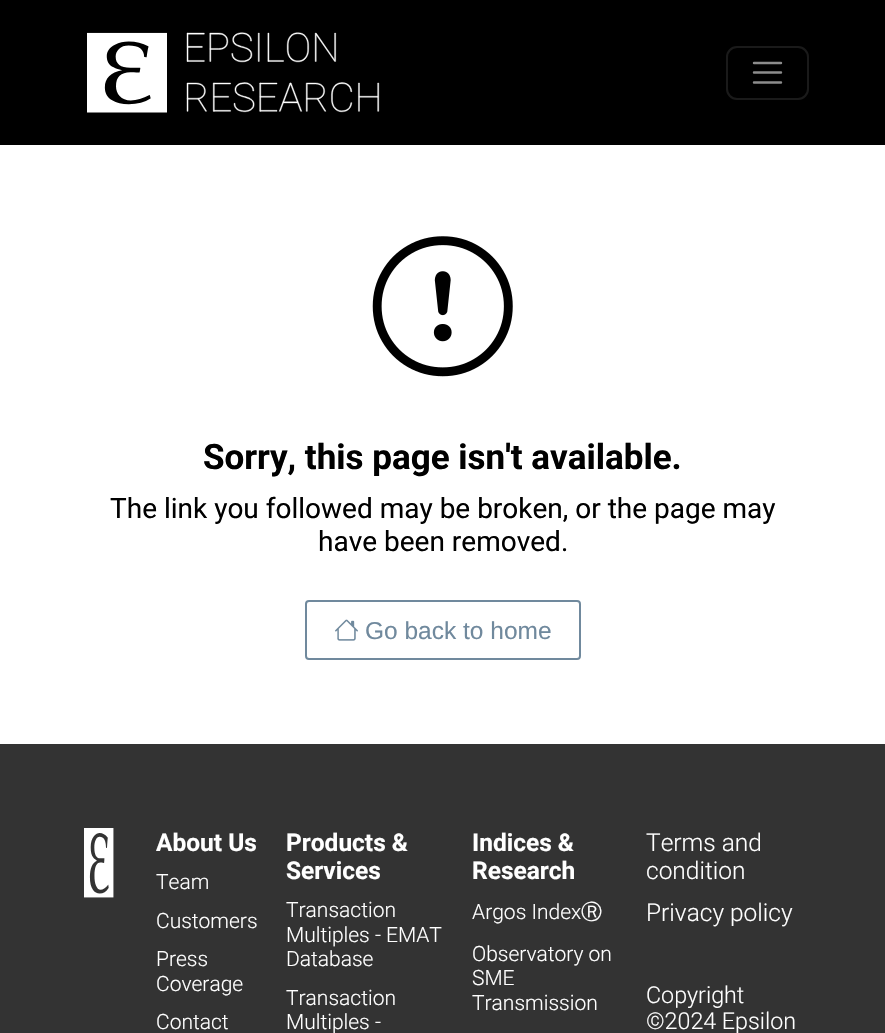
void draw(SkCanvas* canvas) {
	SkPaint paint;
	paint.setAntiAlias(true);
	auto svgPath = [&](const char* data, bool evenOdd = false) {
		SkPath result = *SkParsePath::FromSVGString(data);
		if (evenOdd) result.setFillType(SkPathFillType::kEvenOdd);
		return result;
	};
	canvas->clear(0xffffffff);
	paint.setColor(0xff000000);
	canvas->drawRect(SkRect::MakeXYWH(0, 0, 885, 145), paint);
	canvas->drawImageRect(SkImages::DeferredFromEncodedData(SkData::MakeFromFileName("img1.png")), SkRect::MakeXYWH(87, 32, 293, 81), SkSamplingOptions());
	paint.setStroke(true);
	paint.setStrokeWidth(2);
	paint.setColor(0xff1a1a1a);
	canvas->drawRoundRect(SkRect::MakeXYWH(727, 47, 81, 52), 10, 10, paint);
	paint.setStrokeWidth(2.4);
	paint.setStrokeCap(SkPaint::kRound_Cap);
	paint.setColor(0xff8c8c8c);
	canvas->drawPath(svgPath("M754 63H781M754 72.5H781M754 82.5H781"), paint);
	canvas->drawImageRect(SkImages::DeferredFromEncodedData(SkData::MakeFromFileName("img2.png")), SkRect::MakeXYWH(372, 236, 141, 141), SkSamplingOptions());
	SkFont f1(fontMgr->matchFamilyStyle("Roboto", SkFontStyle::Bold()), 35);
	f1.setSubpixel(true);
	paint.setStroke(false);
	paint.setColor(0xff000000);
	canvas->drawString("Sorry, this page isn't available.", 203, 469, f1, paint);
	SkFont f2(fontMgr->matchFamilyStyle("Roboto", SkFontStyle::Normal()), 28);
	f2.setSubpixel(true);
	canvas->drawString("The link you followed may be broken, or the page may", 110, 518, f2, paint);
	canvas->drawString("have been removed.", 318, 551, f2, paint);
	paint.setStroke(true);
	paint.setStrokeWidth(2);
	paint.setStrokeCap(SkPaint::kButt_Cap);
	paint.setColor(0xff70899d);
	canvas->drawRoundRect(SkRect::MakeXYWH(306, 601, 274, 58), 3, 3, paint);
	canvas->drawImageRect(SkImages::DeferredFromEncodedData(SkData::MakeFromFileName("img3.png")), SkRect::MakeXYWH(335, 619, 23, 22), SkSamplingOptions());
	SkFont f3(fontMgr->matchFamilyStyle("Liberation Sans", SkFontStyle::Normal()), 24.5);
	f3.setSubpixel(true);
	paint.setStroke(false);
	canvas->drawString("Go back to home", 365, 639, f3, paint);
	paint.setColor(0xff333333);
	canvas->drawRect(SkRect::MakeXYWH(0, 744, 885, 289), paint);
	canvas->drawImageRect(SkImages::DeferredFromEncodedData(SkData::MakeFromFileName("img4.png")), SkRect::MakeXYWH(84, 828, 30, 70), SkSamplingOptions());
	SkFont f4(fontMgr->matchFamilyStyle("Roboto", SkFontStyle::Bold()), 24.5);
	f4.setSubpixel(true);
	paint.setColor(0xffffffff);
	canvas->drawString("About Us", 156, 851, f4, paint);
	SkFont f5(fontMgr->matchFamilyStyle("Roboto", SkFontStyle(300, SkFontStyle::kNormal_Width, SkFontStyle::kUpright_Slant)), 21);
	f5.setSubpixel(true);
	canvas->drawString("Team", 156, 889, f5, paint);
	canvas->drawString("Customers", 156, 928, f5, paint);
	canvas->drawString("Press", 156, 966, f5, paint);
	canvas->drawString("Coverage", 156, 991, f5, paint);
	canvas->drawString("Contact", 156, 1029, f5, paint);
	canvas->drawString("Products &", 286, 851, f4, paint);
	canvas->drawString("Services", 286, 879, f4, paint);
	canvas->drawString("Transaction", 286, 917, f5, paint);
	canvas->drawString("Multiples - EMAT", 286, 942, f5, paint);
	canvas->drawString("Database", 286, 966, f5, paint);
	canvas->drawString("Transaction", 286, 1005, f5, paint);
	canvas->drawString("Multiples -", 286, 1029, f5, paint);
	canvas->drawString("Indices &", 472, 851, f4, paint);
	canvas->drawString("Research", 472, 879, f4, paint);
	canvas->drawString("Argos Index", 472, 919, f5, paint);
	SkFont f6(fontMgr->matchFamilyStyle("WenQuanYi Zen Hei", SkFontStyle(500, SkFontStyle::kNormal_Width, SkFontStyle::kUpright_Slant)), 21);
	f6.setSubpixel(true);
	canvas->drawString("Ⓡ", 581, 919, f6, paint);
	canvas->drawString("Observatory on", 472, 961, f5, paint);
	canvas->drawString("SME", 472, 985, f5, paint);
	canvas->drawString("Transmission", 472, 1010, f5, paint);
	SkFont f7(fontMgr->matchFamilyStyle("Roboto", SkFontStyle(300, SkFontStyle::kNormal_Width, SkFontStyle::kUpright_Slant)), 24.5);
	f7.setSubpixel(true);
	canvas->drawString("Terms and", 646, 851, f7, paint);
	canvas->drawString("condition", 646, 879, f7, paint);
	canvas->drawString("Privacy policy", 646, 921, f7, paint);
	SkFont f8(fontMgr->matchFamilyStyle("Roboto", SkFontStyle(300, SkFontStyle::kNormal_Width, SkFontStyle::kUpright_Slant)), 23.25);
	f8.setSubpixel(true);
	canvas->drawString("Copyright", 646, 1003, f8, paint);
	canvas->drawString("©2024 Epsilon", 646, 1029, f8, paint);
}
